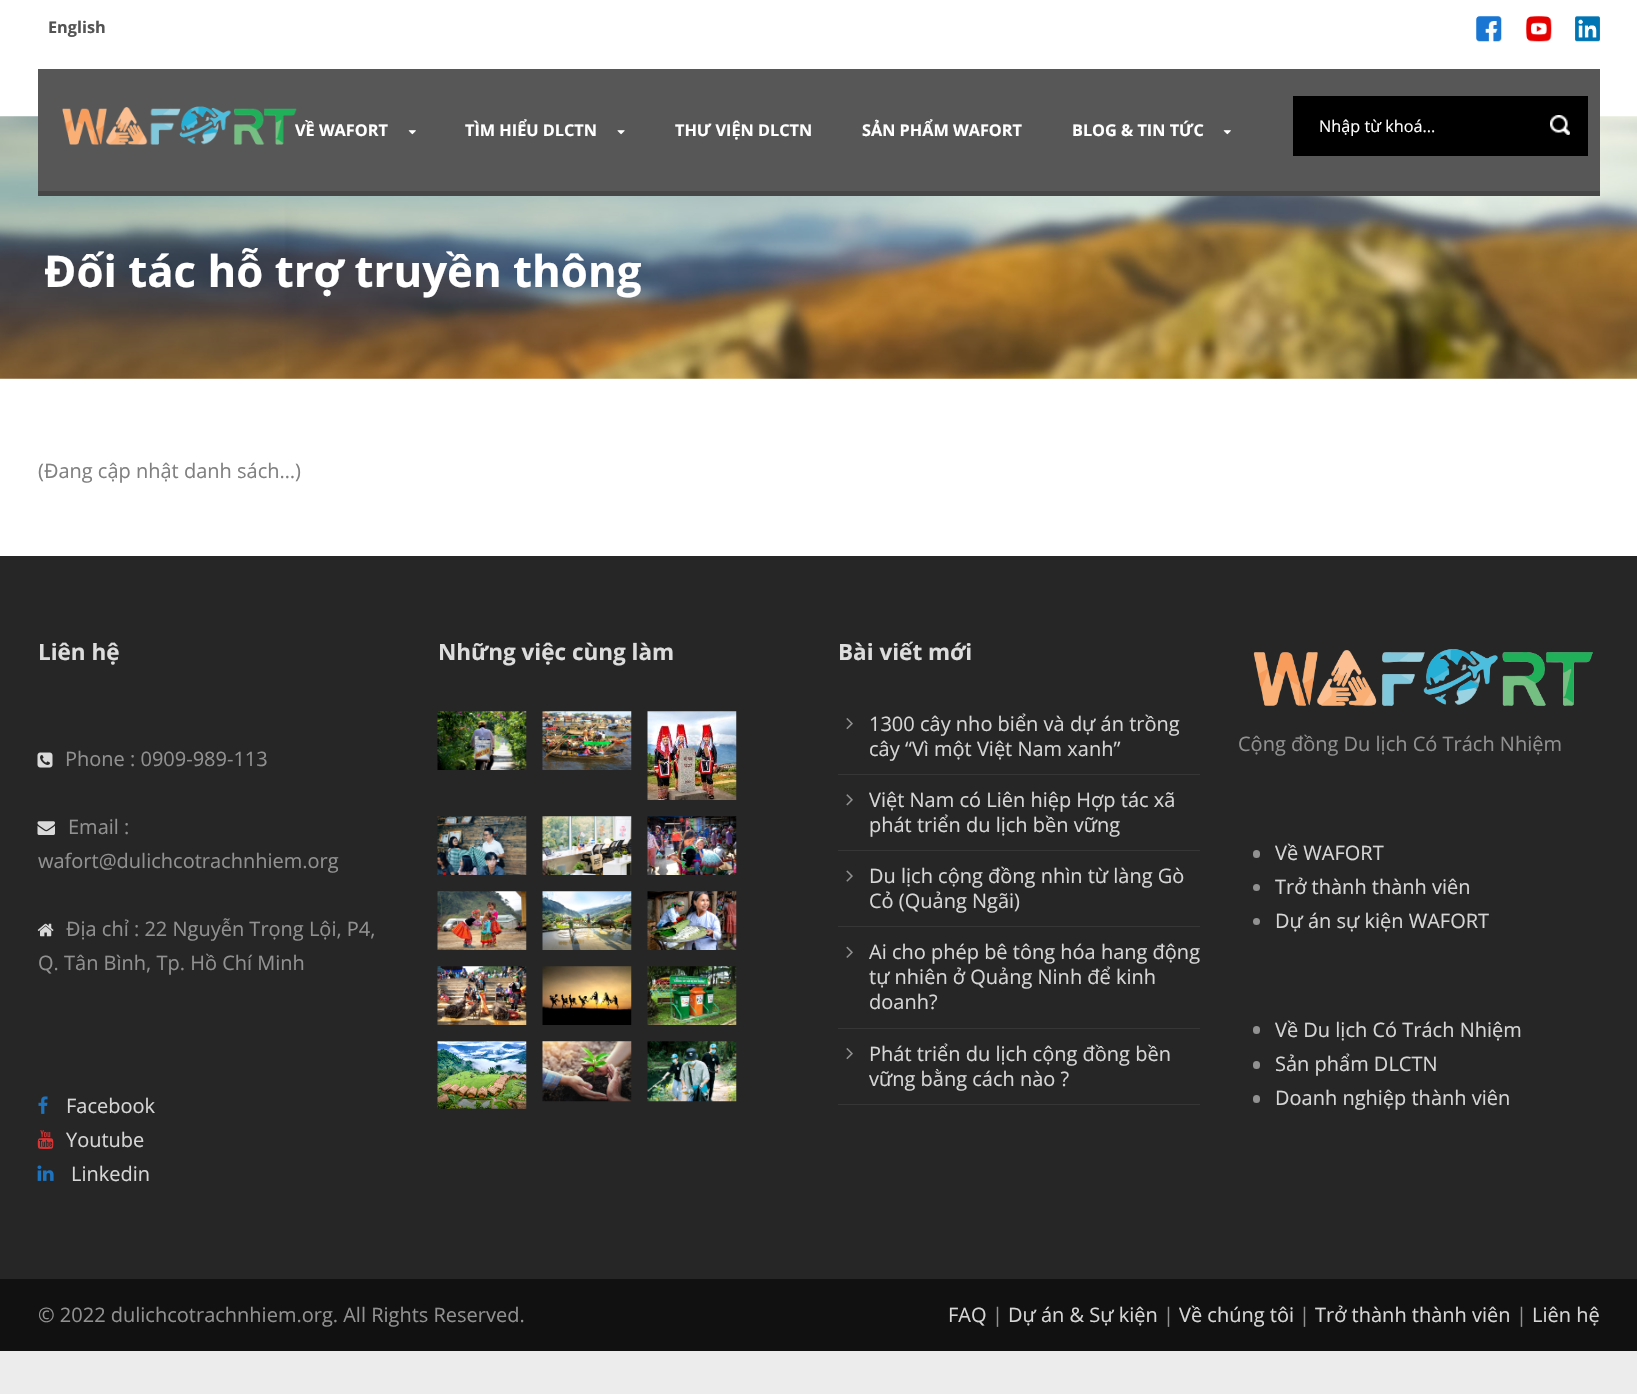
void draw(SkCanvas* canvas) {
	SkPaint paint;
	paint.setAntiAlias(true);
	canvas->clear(0xffececec);
	paint.setColor(0xffffffff);
	canvas->drawRect(SkRect::MakeXYWH(0, 0, 1637, 556), paint);
	SkFont f1(fontMgr->matchFamilyStyle("Open Sans", SkFontStyle::Bold()), 16.25);
	f1.setSubpixel(true);
	paint.setColor(0xff545454);
	canvas->drawString("English", 48, 33, f1, paint);
	canvas->drawImageRect(SkImages::DeferredFromEncodedData(SkData::MakeFromFileName("img1.png")), SkRect::MakeXYWH(1476, 16, 26, 26), SkSamplingOptions());
	canvas->drawImageRect(SkImages::DeferredFromEncodedData(SkData::MakeFromFileName("img2.png")), SkRect::MakeXYWH(1526, 16, 26, 26), SkSamplingOptions());
	canvas->drawImageRect(SkImages::DeferredFromEncodedData(SkData::MakeFromFileName("img3.png")), SkRect::MakeXYWH(1575, 16, 25, 26), SkSamplingOptions());
	canvas->drawImageRect(SkImages::DeferredFromEncodedData(SkData::MakeFromFileName("img8.png")), SkRect::MakeXYWH(0, 116, 1637, 263), SkSamplingOptions());
	paint.setColor(0xff575757);
	canvas->drawRect(SkRect::MakeXYWH(38, 69, 1562, 122), paint);
	paint.setColor(0xff474747);
	canvas->drawRect(SkRect::MakeXYWH(38, 191, 1562, 5), paint);
	paint.setColor(0xffffffff);
	canvas->drawString("VỀ WAFORT", 295, 136, f1, paint);
	canvas->drawImageRect(SkImages::DeferredFromEncodedData(SkData::MakeFromFileName("img4.png")), SkRect::MakeXYWH(408, 130, 8, 5), SkSamplingOptions());
	canvas->drawString("TÌM HIỂU DLCTN", 465, 136, f1, paint);
	canvas->drawImageRect(SkImages::DeferredFromEncodedData(SkData::MakeFromFileName("img5.png")), SkRect::MakeXYWH(617, 130, 8, 5), SkSamplingOptions());
	canvas->drawString("THƯ VIỆN DLCTN", 675, 136, f1, paint);
	canvas->drawString("SẢN PHẨM WAFORT", 862, 136, f1, paint);
	canvas->drawString("BLOG & TIN TỨC", 1072, 136, f1, paint);
	canvas->drawImageRect(SkImages::DeferredFromEncodedData(SkData::MakeFromFileName("img4.png")), SkRect::MakeXYWH(1223, 130, 8, 5), SkSamplingOptions());
	canvas->drawImageRect(SkImages::DeferredFromEncodedData(SkData::MakeFromFileName("img6.png")), SkRect::MakeXYWH(62, 106, 235, 39), SkSamplingOptions());
	paint.setColor(0xff000000);
	canvas->drawRect(SkRect::MakeXYWH(1293, 96, 295, 60), paint);
	SkFont f2(fontMgr->matchFamilyStyle("Open Sans", SkFontStyle::Normal()), 16.25);
	f2.setSubpixel(true);
	paint.setColor(0xffffffff);
	canvas->drawString("Nhập từ khoá...", 1319, 132, f2, paint);
	canvas->drawImageRect(SkImages::DeferredFromEncodedData(SkData::MakeFromFileName("img7.png")), SkRect::MakeXYWH(1550, 115, 20, 20), SkSamplingOptions());
	SkFont f3(fontMgr->matchFamilyStyle("Open Sans", SkFontStyle::Bold()), 43.75);
	f3.setSubpixel(true);
	canvas->drawString("Đối tác hỗ trợ truyền thông", 44, 287, f3, paint);
	SkFont f4(fontMgr->matchFamilyStyle("Open Sans", SkFontStyle::Normal()), 20);
	f4.setSubpixel(true);
	paint.setColor(0xff808080);
	canvas->drawString("(Đang cập nhật danh sách…)", 38, 478, f4, paint);
	paint.setColor(0xff262626);
	canvas->drawRect(SkRect::MakeXYWH(0, 556, 1637, 723), paint);
	SkFont f5(fontMgr->matchFamilyStyle("Open Sans", SkFontStyle::Bold()), 22.5);
	f5.setSubpixel(true);
	paint.setColor(0xffdddddd);
	canvas->drawString("Liên hệ", 38, 660, f5, paint);
	canvas->drawImageRect(SkImages::DeferredFromEncodedData(SkData::MakeFromFileName("img9.png")), SkRect::MakeXYWH(37, 752, 16, 16), SkSamplingOptions());
	paint.setColor(0xff919191);
	canvas->drawString("Phone : 0909-989-113", 65, 766, f4, paint);
	canvas->drawImageRect(SkImages::DeferredFromEncodedData(SkData::MakeFromFileName("img10.png")), SkRect::MakeXYWH(37, 821, 18, 14), SkSamplingOptions());
	canvas->drawString("Email :", 68, 834, f4, paint);
	canvas->drawString("wafort@dulichcotrachnhiem.org", 38, 868, f4, paint);
	canvas->drawImageRect(SkImages::DeferredFromEncodedData(SkData::MakeFromFileName("img11.png")), SkRect::MakeXYWH(37, 923, 17, 14), SkSamplingOptions());
	canvas->drawString("Địa chỉ : 22 Nguyễn Trọng Lội, P4,", 66, 936, f4, paint);
	canvas->drawString("Q. Tân Bình, Tp. Hồ Chí Minh", 38, 970, f4, paint);
	canvas->drawImageRect(SkImages::DeferredFromEncodedData(SkData::MakeFromFileName("img12.png")), SkRect::MakeXYWH(38, 1096, 10, 18), SkSamplingOptions());
	paint.setColor(0xffd6d6d6);
	canvas->drawString("Facebook", 66, 1113, f4, paint);
	canvas->drawImageRect(SkImages::DeferredFromEncodedData(SkData::MakeFromFileName("img13.png")), SkRect::MakeXYWH(37, 1130, 17, 19), SkSamplingOptions());
	canvas->drawString("Youtube", 66, 1147, f4, paint);
	canvas->drawImageRect(SkImages::DeferredFromEncodedData(SkData::MakeFromFileName("img14.png")), SkRect::MakeXYWH(37, 1165, 17, 16), SkSamplingOptions());
	canvas->drawString("Linkedin", 71, 1181, f4, paint);
	paint.setColor(0xffdddddd);
	canvas->drawString("Những việc cùng làm", 438, 660, f5, paint);
	canvas->drawImageRect(SkImages::DeferredFromEncodedData(SkData::MakeFromFileName("img15.png")), SkRect::MakeXYWH(437, 711, 90, 59), SkSamplingOptions());
	canvas->drawImageRect(SkImages::DeferredFromEncodedData(SkData::MakeFromFileName("img16.png")), SkRect::MakeXYWH(542, 711, 90, 59), SkSamplingOptions());
	canvas->drawImageRect(SkImages::DeferredFromEncodedData(SkData::MakeFromFileName("img17.png")), SkRect::MakeXYWH(647, 711, 90, 89), SkSamplingOptions());
	canvas->drawImageRect(SkImages::DeferredFromEncodedData(SkData::MakeFromFileName("img18.png")), SkRect::MakeXYWH(437, 816, 90, 59), SkSamplingOptions());
	canvas->drawImageRect(SkImages::DeferredFromEncodedData(SkData::MakeFromFileName("img19.png")), SkRect::MakeXYWH(542, 816, 90, 59), SkSamplingOptions());
	canvas->drawImageRect(SkImages::DeferredFromEncodedData(SkData::MakeFromFileName("img20.png")), SkRect::MakeXYWH(647, 816, 90, 59), SkSamplingOptions());
	canvas->drawImageRect(SkImages::DeferredFromEncodedData(SkData::MakeFromFileName("img21.png")), SkRect::MakeXYWH(437, 891, 90, 59), SkSamplingOptions());
	canvas->drawImageRect(SkImages::DeferredFromEncodedData(SkData::MakeFromFileName("img22.png")), SkRect::MakeXYWH(542, 891, 90, 59), SkSamplingOptions());
	canvas->drawImageRect(SkImages::DeferredFromEncodedData(SkData::MakeFromFileName("img23.png")), SkRect::MakeXYWH(647, 891, 90, 59), SkSamplingOptions());
	canvas->drawImageRect(SkImages::DeferredFromEncodedData(SkData::MakeFromFileName("img24.png")), SkRect::MakeXYWH(437, 966, 90, 59), SkSamplingOptions());
	canvas->drawImageRect(SkImages::DeferredFromEncodedData(SkData::MakeFromFileName("img25.png")), SkRect::MakeXYWH(542, 966, 90, 59), SkSamplingOptions());
	canvas->drawImageRect(SkImages::DeferredFromEncodedData(SkData::MakeFromFileName("img26.png")), SkRect::MakeXYWH(647, 966, 90, 59), SkSamplingOptions());
	canvas->drawImageRect(SkImages::DeferredFromEncodedData(SkData::MakeFromFileName("img27.png")), SkRect::MakeXYWH(437, 1041, 90, 68), SkSamplingOptions());
	canvas->drawImageRect(SkImages::DeferredFromEncodedData(SkData::MakeFromFileName("img28.png")), SkRect::MakeXYWH(542, 1041, 90, 61), SkSamplingOptions());
	canvas->drawImageRect(SkImages::DeferredFromEncodedData(SkData::MakeFromFileName("img29.png")), SkRect::MakeXYWH(647, 1041, 90, 61), SkSamplingOptions());
	canvas->drawString("Bài viết mới", 838, 660, f5, paint);
	paint.setColor(0xff363636);
	canvas->drawRect(SkRect::MakeXYWH(838, 774, 362, 1), paint);
	canvas->drawImageRect(SkImages::DeferredFromEncodedData(SkData::MakeFromFileName("img30.png")), SkRect::MakeXYWH(846, 718, 7, 12), SkSamplingOptions());
	paint.setColor(0xffd6d6d6);
	canvas->drawString("1300 cây nho biển và dự án trồng", 869, 731, f4, paint);
	canvas->drawString("cây “Vì một Việt Nam xanh”", 869, 756, f4, paint);
	paint.setColor(0xff363636);
	canvas->drawRect(SkRect::MakeXYWH(838, 850, 362, 1), paint);
	canvas->drawImageRect(SkImages::DeferredFromEncodedData(SkData::MakeFromFileName("img31.png")), SkRect::MakeXYWH(846, 794, 7, 12), SkSamplingOptions());
	paint.setColor(0xffd6d6d6);
	canvas->drawString("Việt Nam có Liên hiệp Hợp tác xã", 869, 807, f4, paint);
	canvas->drawString("phát triển du lịch bền vững", 869, 832, f4, paint);
	paint.setColor(0xff363636);
	canvas->drawRect(SkRect::MakeXYWH(838, 926, 362, 1), paint);
	canvas->drawImageRect(SkImages::DeferredFromEncodedData(SkData::MakeFromFileName("img32.png")), SkRect::MakeXYWH(846, 870, 7, 12), SkSamplingOptions());
	paint.setColor(0xffd6d6d6);
	canvas->drawString("Du lịch cộng đồng nhìn từ làng Gò", 869, 883, f4, paint);
	canvas->drawString("Cỏ (Quảng Ngãi)", 869, 908, f4, paint);
	paint.setColor(0xff363636);
	canvas->drawRect(SkRect::MakeXYWH(838, 1028, 362, 1), paint);
	canvas->drawImageRect(SkImages::DeferredFromEncodedData(SkData::MakeFromFileName("img33.png")), SkRect::MakeXYWH(846, 946, 7, 12), SkSamplingOptions());
	paint.setColor(0xffd6d6d6);
	canvas->drawString("Ai cho phép bê tông hóa hang động", 869, 959, f4, paint);
	canvas->drawString("tự nhiên ở Quảng Ninh để kinh", 869, 984, f4, paint);
	canvas->drawString("doanh?", 869, 1009, f4, paint);
	paint.setColor(0xff363636);
	canvas->drawRect(SkRect::MakeXYWH(838, 1104, 362, 1), paint);
	canvas->drawImageRect(SkImages::DeferredFromEncodedData(SkData::MakeFromFileName("img30.png")), SkRect::MakeXYWH(846, 1048, 7, 12), SkSamplingOptions());
	paint.setColor(0xffd6d6d6);
	canvas->drawString("Phát triển du lịch cộng đồng bền", 869, 1061, f4, paint);
	canvas->drawString("vững bằng cách nào ?", 869, 1086, f4, paint);
	canvas->drawImageRect(SkImages::DeferredFromEncodedData(SkData::MakeFromFileName("img34.png")), SkRect::MakeXYWH(1253, 649, 340, 57), SkSamplingOptions());
	paint.setColor(0xff919191);
	canvas->drawString("Cộng đồng Du lịch Có Trách Nhiệm", 1238, 751, f4, paint);
	canvas->drawRoundRect(SkRect::MakeXYWH(1253, 850, 7, 8), 3.5, 3.5, paint);
	paint.setColor(0xffd6d6d6);
	canvas->drawString("Về WAFORT", 1275, 860, f4, paint);
	paint.setColor(0xff919191);
	canvas->drawCircle(1256.5, 887.5, 3.5, paint);
	paint.setColor(0xffd6d6d6);
	canvas->drawString("Trở thành thành viên", 1275, 894, f4, paint);
	paint.setColor(0xff919191);
	canvas->drawCircle(1256.5, 921.5, 3.5, paint);
	paint.setColor(0xffd6d6d6);
	canvas->drawString("Dự án sự kiện WAFORT", 1275, 928, f4, paint);
	paint.setColor(0xff919191);
	canvas->drawRoundRect(SkRect::MakeXYWH(1253, 1026, 7, 8), 3.5, 3.5, paint);
	paint.setColor(0xffd6d6d6);
	canvas->drawString("Về Du lịch Có Trách Nhiệm", 1275, 1037, f4, paint);
	paint.setColor(0xff919191);
	canvas->drawRoundRect(SkRect::MakeXYWH(1253, 1061, 7, 8), 3.5, 3.5, paint);
	paint.setColor(0xffd6d6d6);
	canvas->drawString("Sản phẩm DLCTN", 1275, 1071, f4, paint);
	paint.setColor(0xff919191);
	canvas->drawRoundRect(SkRect::MakeXYWH(1253, 1095, 7, 8), 3.5, 3.5, paint);
	paint.setColor(0xffd6d6d6);
	canvas->drawString("Doanh nghiệp thành viên", 1275, 1105, f4, paint);
	paint.setColor(0xff111111);
	canvas->drawRect(SkRect::MakeXYWH(0, 1279, 1637, 72), paint);
	paint.setColor(0xff919191);
	canvas->drawString("© 2022 dulichcotrachnhiem.org. All Rights Reserved.", 38, 1322, f4, paint);
	paint.setColor(0xffd6d6d6);
	canvas->drawString("FAQ", 948, 1322, f4, paint);
	paint.setColor(0xff919191);
	canvas->drawString("|", 992, 1322, f4, paint);
	paint.setColor(0xffd6d6d6);
	canvas->drawString("Dự án & Sự kiện", 1008, 1322, f4, paint);
	paint.setColor(0xff919191);
	canvas->drawString("|", 1163, 1322, f4, paint);
	paint.setColor(0xffd6d6d6);
	canvas->drawString("Về chúng tôi", 1179, 1322, f4, paint);
	paint.setColor(0xff919191);
	canvas->drawString("|", 1299, 1322, f4, paint);
	paint.setColor(0xffd6d6d6);
	canvas->drawString("Trở thành thành viên", 1315, 1322, f4, paint);
	paint.setColor(0xff919191);
	canvas->drawString("|", 1516, 1322, f4, paint);
	paint.setColor(0xffd6d6d6);
	canvas->drawString("Liên hệ", 1532, 1322, f4, paint);
}
